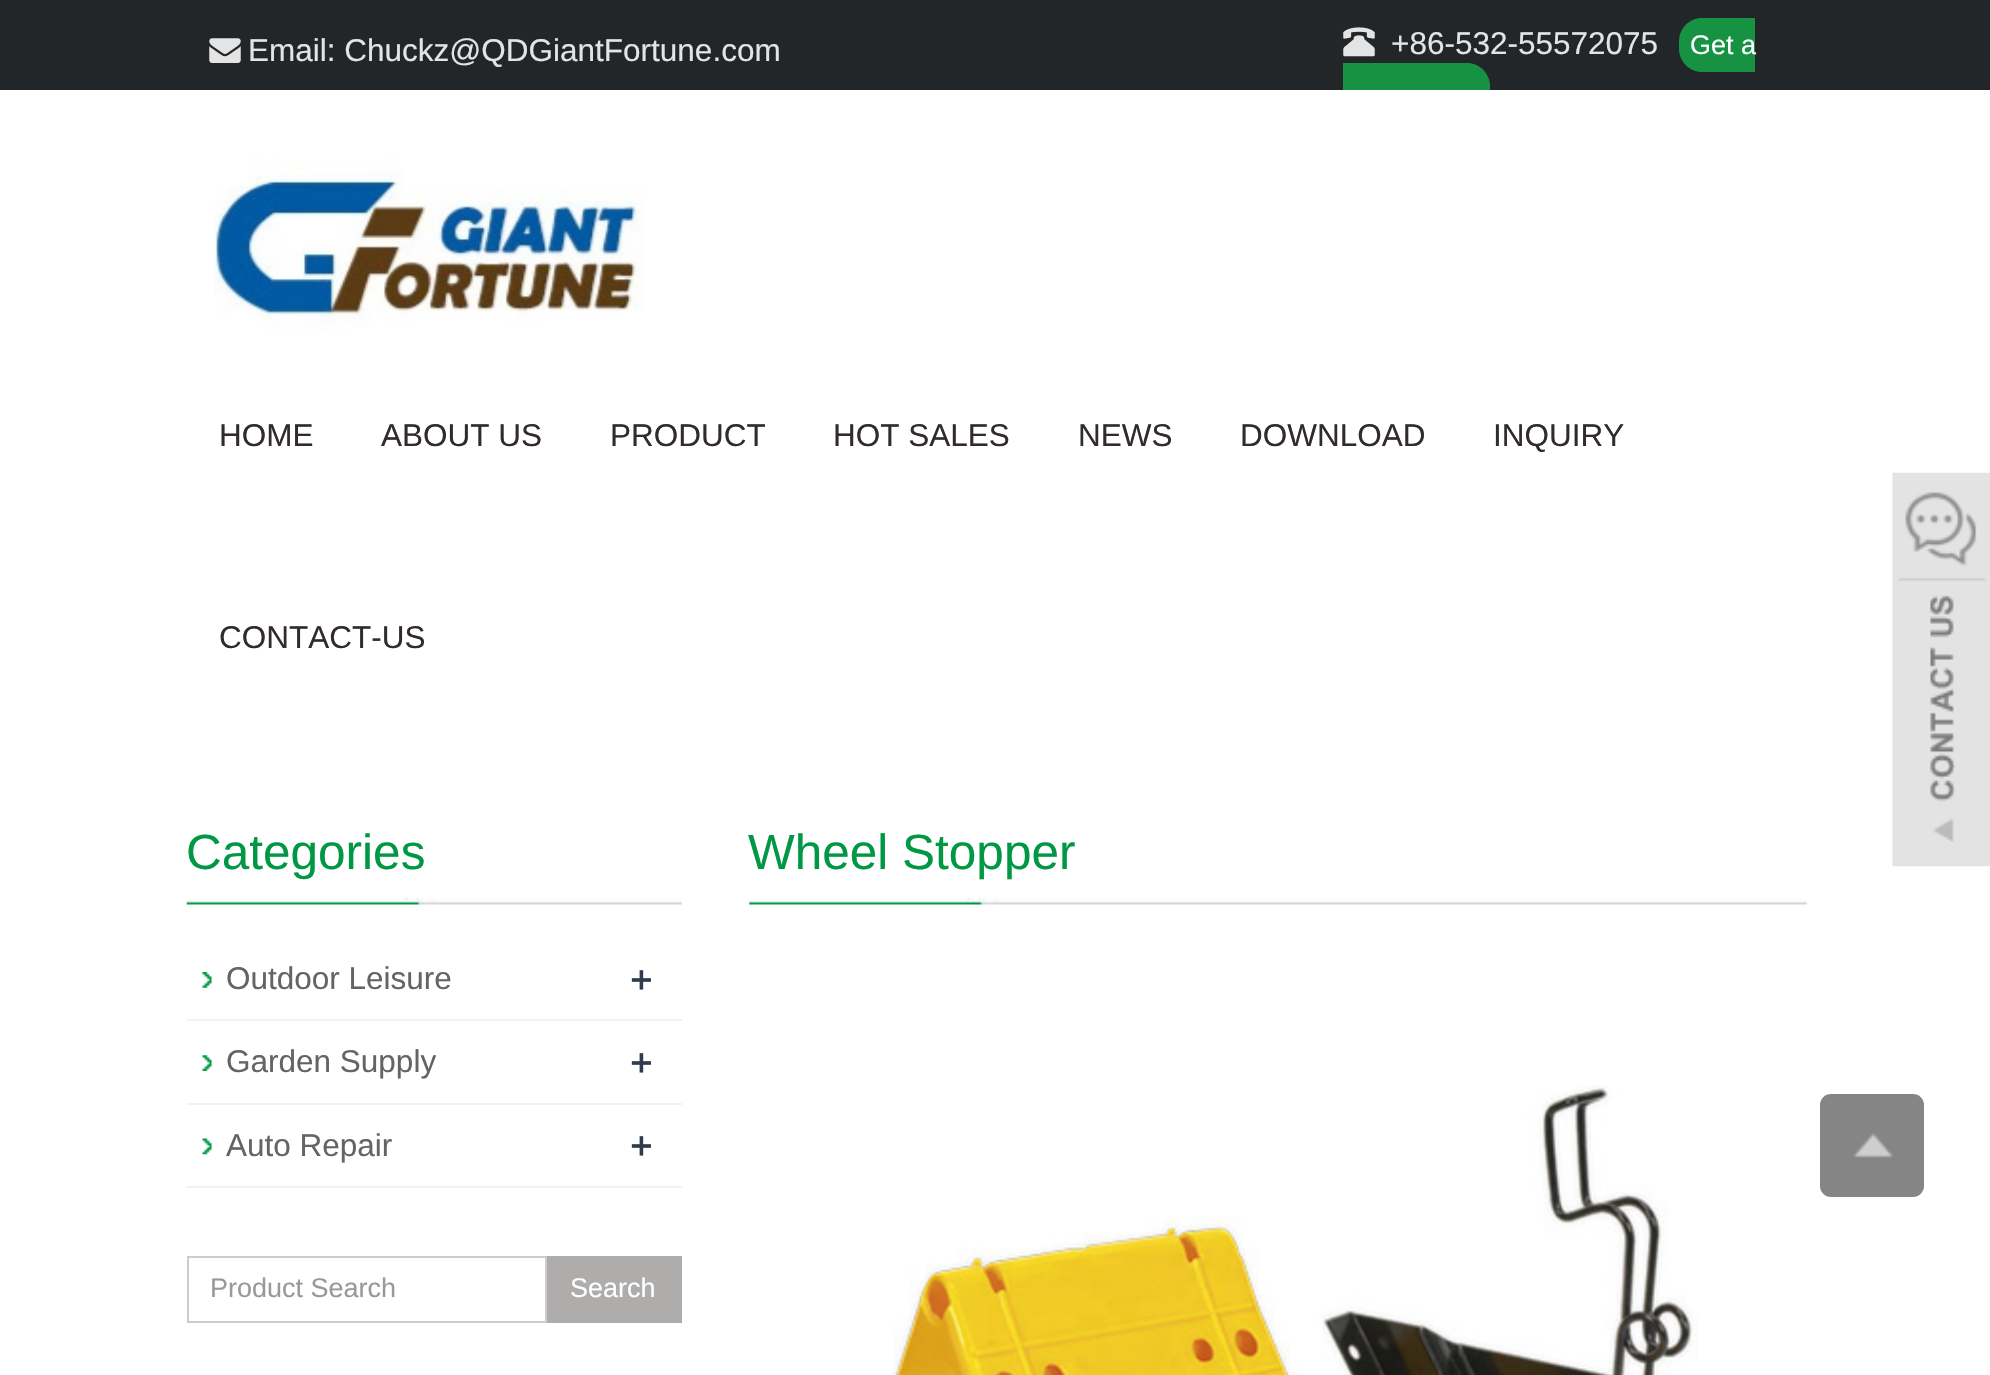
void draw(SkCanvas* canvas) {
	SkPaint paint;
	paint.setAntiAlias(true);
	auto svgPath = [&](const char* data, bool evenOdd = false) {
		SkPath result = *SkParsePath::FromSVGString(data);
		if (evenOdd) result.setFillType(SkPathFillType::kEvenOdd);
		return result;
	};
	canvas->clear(0xffffffff);
	paint.setColor(0xff222629);
	canvas->drawRect(SkRect::MakeXYWH(0, 0, 1990, 90), paint);
	canvas->drawImageRect(SkImages::DeferredFromEncodedData(SkData::MakeFromFileName("img1.png")), SkRect::MakeXYWH(209, 38, 32, 25), SkSamplingOptions());
	SkFont f1(fontMgr->matchFamilyStyle("Liberation Sans", SkFontStyle::Normal()), 31.5);
	f1.setSubpixel(true);
	paint.setColor(0xffe4e4e4);
	canvas->drawString("Email: Chuckz@QDGiantFortune.com", 248, 61, f1, paint);
	canvas->drawImageRect(SkImages::DeferredFromEncodedData(SkData::MakeFromFileName("img2.png")), SkRect::MakeXYWH(1343, 27, 32, 30), SkSamplingOptions());
	canvas->drawString("+86-532-55572075", 1391, 54, f1, paint);
	paint.setColor(0xff179243);
	canvas->drawPath(svgPath("M1702 18H1755V72H1702C1689.5 72 1679 61.5 1679 49V41C1679 28.5 1689.5 18 1702 18Z"), paint);
	SkFont f2(fontMgr->matchFamilyStyle("Liberation Sans", SkFontStyle::Normal()), 27);
	f2.setSubpixel(true);
	paint.setColor(0xffffffff);
	canvas->drawString("Get a", 1690, 54, f2, paint);
	paint.setColor(0xff179243);
	canvas->drawPath(svgPath("M1343 63H1467C1479.5 63 1490 73.5 1490 86V94C1490 106.5 1479.5 117 1467 117H1343Z"), paint);
	paint.setColor(0xffffffff);
	canvas->drawRect(SkRect::MakeXYWH(1343, 90, 147, 27), paint);
	canvas->drawImageRect(SkImages::DeferredFromEncodedData(SkData::MakeFromFileName("img3.png")), SkRect::MakeXYWH(214, 158, 430, 175), SkSamplingOptions());
	paint.setColor(0xff312b2b);
	canvas->drawString("HOME", 219, 446, f1, paint);
	canvas->drawString("ABOUT US", 381, 446, f1, paint);
	canvas->drawString("PRODUCT", 610, 446, f1, paint);
	canvas->drawString("HOT SALES", 833, 446, f1, paint);
	canvas->drawString("NEWS", 1078, 446, f1, paint);
	canvas->drawString("DOWNLOAD", 1240, 446, f1, paint);
	canvas->drawString("INQUIRY", 1493, 446, f1, paint);
	canvas->drawString("CONTACT-US", 219, 648, f1, paint);
	canvas->drawImageRect(SkImages::DeferredFromEncodedData(SkData::MakeFromFileName("img4.png")), SkRect::MakeXYWH(1892, 472, 98, 395), SkSamplingOptions());
	canvas->drawImageRect(SkImages::DeferredFromEncodedData(SkData::MakeFromFileName("img5.png")), SkRect::MakeXYWH(186, 897, 496, 8), SkSamplingOptions());
	SkFont f3(fontMgr->matchFamilyStyle("Liberation Sans", SkFontStyle::Normal()), 49.5);
	f3.setSubpixel(true);
	paint.setColor(0xff009844);
	canvas->drawString("Categories", 186, 869, f3, paint);
	canvas->drawImageRect(SkImages::DeferredFromEncodedData(SkData::MakeFromFileName("img6.png")), SkRect::MakeXYWH(202, 972, 11, 16), SkSamplingOptions());
	paint.setColor(0xfff2f2f2);
	canvas->drawRect(SkRect::MakeXYWH(187, 1019, 495, 2), paint);
	paint.setColor(0xff656464);
	canvas->drawString("Outdoor Leisure", 226, 989, f1, paint);
	SkFont f4(fontMgr->matchFamilyStyle("Open Sans", SkFontStyle(600, SkFontStyle::kNormal_Width, SkFontStyle::kUpright_Slant)), 40);
	f4.setSubpixel(true);
	paint.setColor(0xff303c4b);
	canvas->drawString("+", 630, 994, f4, paint);
	canvas->drawImageRect(SkImages::DeferredFromEncodedData(SkData::MakeFromFileName("img7.png")), SkRect::MakeXYWH(202, 1055, 11, 16), SkSamplingOptions());
	paint.setColor(0xfff2f2f2);
	canvas->drawRect(SkRect::MakeXYWH(187, 1103, 495, 2), paint);
	paint.setColor(0xff656464);
	canvas->drawString("Garden Supply", 226, 1072, f1, paint);
	paint.setColor(0xff303c4b);
	canvas->drawString("+", 630, 1077, f4, paint);
	canvas->drawImageRect(SkImages::DeferredFromEncodedData(SkData::MakeFromFileName("img8.png")), SkRect::MakeXYWH(202, 1138, 11, 17), SkSamplingOptions());
	paint.setColor(0xfff2f2f2);
	canvas->drawRect(SkRect::MakeXYWH(187, 1186, 495, 2), paint);
	paint.setColor(0xff656464);
	canvas->drawString("Auto Repair", 226, 1156, f1, paint);
	paint.setColor(0xff303c4b);
	canvas->drawString("+", 630, 1160, f4, paint);
	paint.setStroke(true);
	paint.setStrokeWidth(2);
	paint.setColor(0xffcccccc);
	canvas->drawRect(SkRect::MakeXYWH(188, 1257, 358, 65), paint);
	paint.setStroke(false);
	paint.setColor(0xff999999);
	canvas->drawString("Product Search", 210, 1297, f2, paint);
	paint.setColor(0xffafacac);
	canvas->drawRect(SkRect::MakeXYWH(547, 1256, 135, 67), paint);
	paint.setColor(0xffffffff);
	canvas->drawString("Search", 570, 1297, f2, paint);
	canvas->drawImageRect(SkImages::DeferredFromEncodedData(SkData::MakeFromFileName("img9.png")), SkRect::MakeXYWH(749, 897, 1058, 8), SkSamplingOptions());
	paint.setColor(0xff009844);
	canvas->drawString("Wheel Stopper", 748, 869, f3, paint);
	canvas->drawImageRect(SkImages::DeferredFromEncodedData(SkData::MakeFromFileName("img10.png")), SkRect::MakeXYWH(891, 1085, 807, 290), SkSamplingOptions());
	paint.setColor(0xff858585);
	canvas->drawRoundRect(SkRect::MakeXYWH(1820, 1094, 104, 103), 11, 11, paint);
	canvas->drawImageRect(SkImages::DeferredFromEncodedData(SkData::MakeFromFileName("img11.png")), SkRect::MakeXYWH(1853, 1133, 40, 25), SkSamplingOptions());
}
